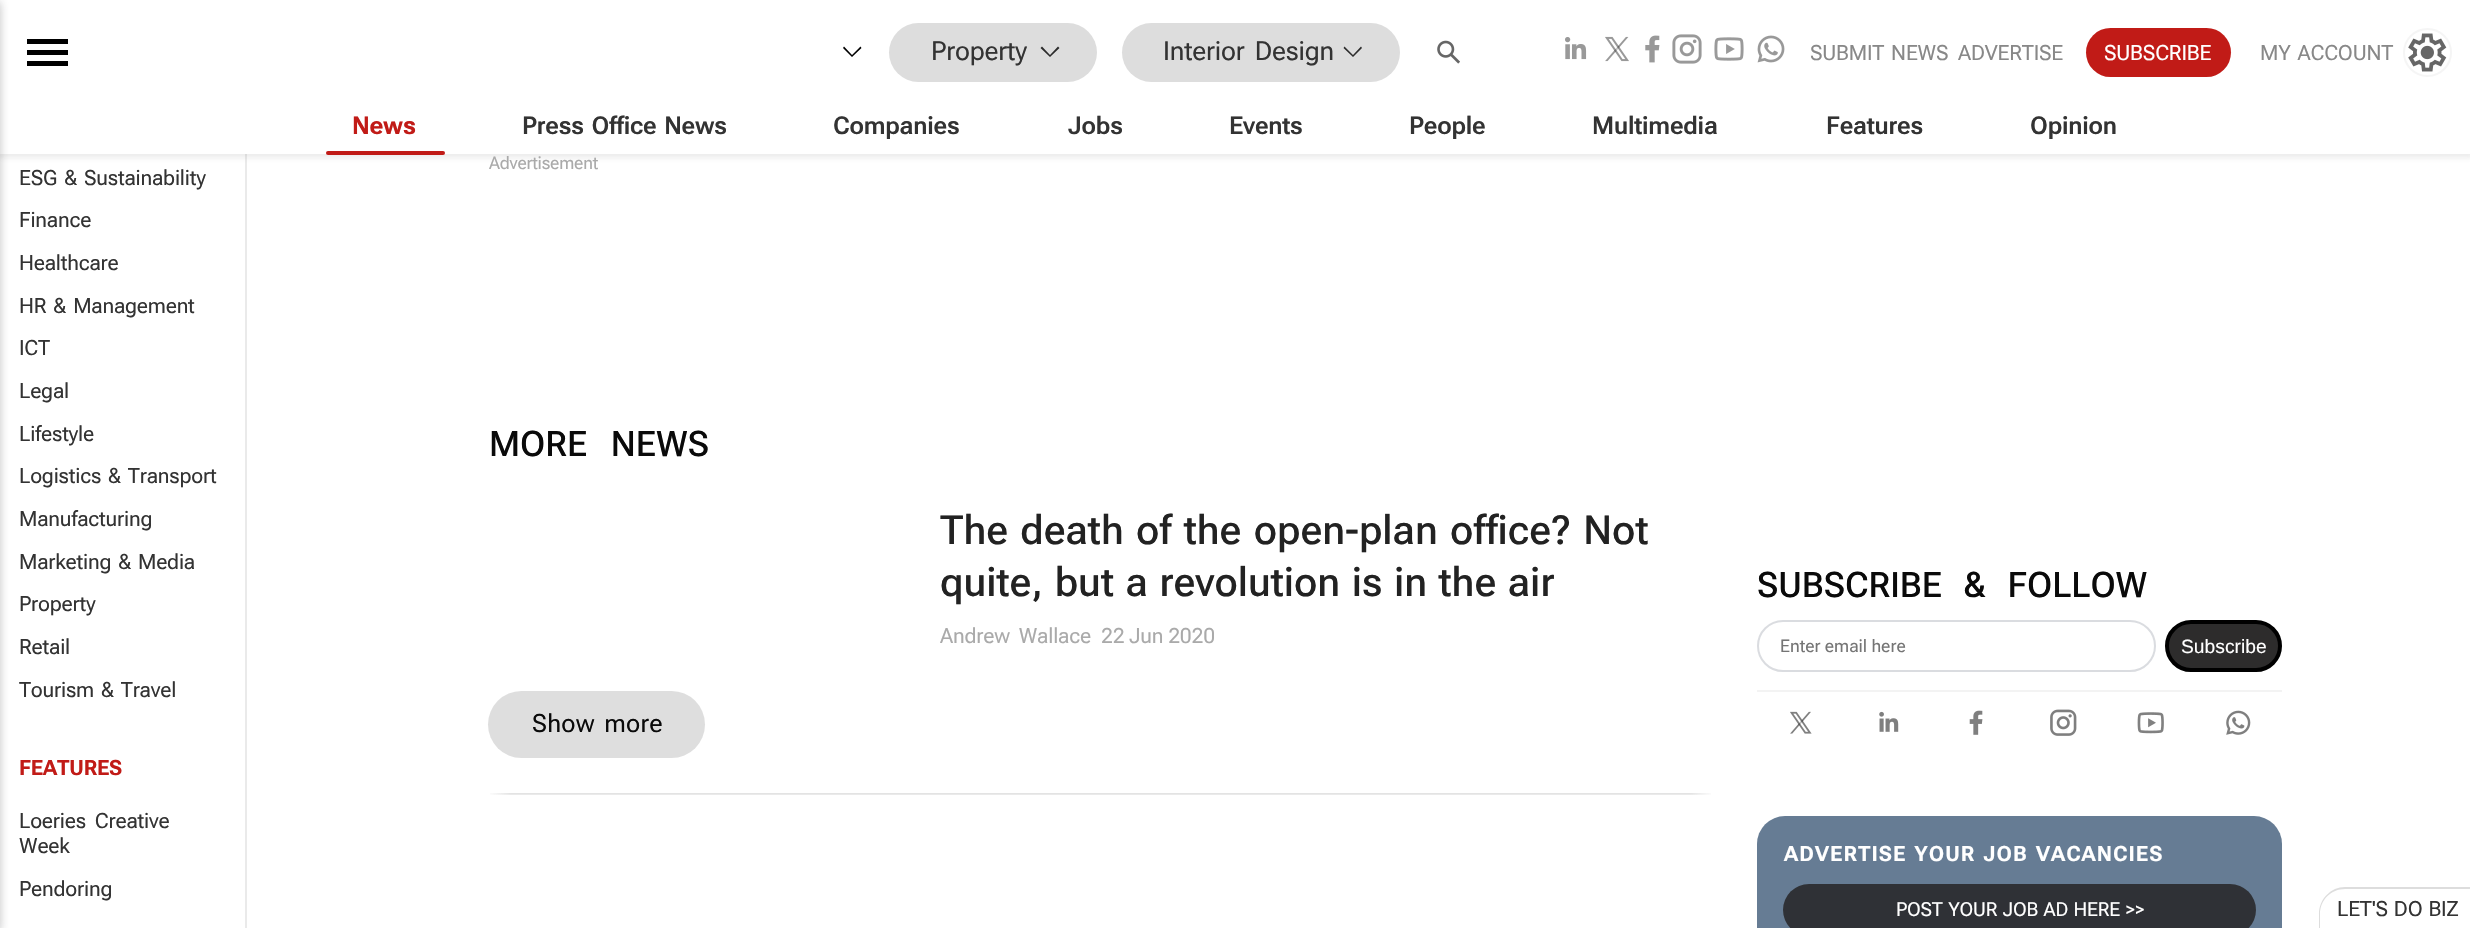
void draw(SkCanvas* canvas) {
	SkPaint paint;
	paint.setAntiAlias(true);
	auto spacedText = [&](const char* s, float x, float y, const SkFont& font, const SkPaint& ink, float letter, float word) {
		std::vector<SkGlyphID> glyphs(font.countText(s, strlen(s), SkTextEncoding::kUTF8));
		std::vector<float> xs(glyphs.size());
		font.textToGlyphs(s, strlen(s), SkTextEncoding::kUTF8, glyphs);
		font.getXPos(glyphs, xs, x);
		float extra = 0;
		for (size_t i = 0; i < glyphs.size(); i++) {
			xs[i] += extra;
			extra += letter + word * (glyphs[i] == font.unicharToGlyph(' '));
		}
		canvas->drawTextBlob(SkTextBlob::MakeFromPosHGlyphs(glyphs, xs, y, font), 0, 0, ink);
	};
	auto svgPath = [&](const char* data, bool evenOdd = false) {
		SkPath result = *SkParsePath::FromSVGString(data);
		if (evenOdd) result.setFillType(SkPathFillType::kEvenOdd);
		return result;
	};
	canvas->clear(0xffffffff);
	paint.setColor(0xffeaeaea);
	canvas->drawPath(svgPath("M0-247H247V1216C247 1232 234 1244 219 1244H0ZM0-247H245V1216C245 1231 233 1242 219 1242H0Z", true), paint);
	paint.setColor(0x1a414549);
	paint.setMaskFilter(SkMaskFilter::MakeBlur(kNormal_SkBlurStyle, 2.5));
	canvas->drawRect(SkRect::MakeXYWH(-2, 0, 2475, 158), paint);
	paint.setMaskFilter(nullptr);
	paint.setColor(0xffffffff);
	canvas->drawRect(SkRect::MakeXYWH(0, 0, 2470, 154), paint);
	paint.setColor(0x47202124);
	paint.setMaskFilter(SkMaskFilter::MakeBlur(kNormal_SkBlurStyle, 5));
	canvas->drawRect(SkRect::MakeXYWH(-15, 2, 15, 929), paint);
	paint.setMaskFilter(nullptr);
	paint.setColor(0xff000000);
	canvas->drawPath(svgPath("M27 66V61H68V66ZM27 55V50H68V55ZM27 44V39H68V44Z"), paint);
	canvas->drawPath(svgPath("M852 57L843 48L844 46.5L852 55L860.5 46.5L861.5 48Z"), paint);
	paint.setColor(0xffdddddd);
	canvas->drawRoundRect(SkRect::MakeXYWH(889, 23, 208, 59), 29.5, 29.5, paint);
	SkFont f1(fontMgr->matchFamilyStyle("Roboto Flex", SkFontStyle::Normal()), 26.25);
	f1.setSubpixel(true);
	paint.setColor(0xff333333);
	spacedText("Property", 931, 60, f1, paint, -0.2, 0);
	paint.setColor(0xff2c2c2c);
	canvas->drawPath(svgPath("M1050 57L1040.5 48L1042 46.5L1050 55L1058 46.5L1059.5 48Z"), paint);
	paint.setColor(0xffdddddd);
	canvas->drawRoundRect(SkRect::MakeXYWH(1122, 23, 278, 59), 29.5, 29.5, paint);
	paint.setColor(0xff333333);
	spacedText("Interior Design", 1163, 60, f1, paint, -0.2, 4);
	paint.setColor(0xff2c2c2c);
	canvas->drawPath(svgPath("M1353 57L1343.5 48L1344.5 46.5L1353 55L1361 46.5L1362 48Z"), paint);
	canvas->drawImageRect(SkImages::DeferredFromEncodedData(SkData::MakeFromFileName("img1.png")), SkRect::MakeXYWH(1437, 40, 23, 24), SkSamplingOptions());
	canvas->drawImageRect(SkImages::DeferredFromEncodedData(SkData::MakeFromFileName("img2.png")), SkRect::MakeXYWH(1565, 37, 22, 23), SkSamplingOptions());
	canvas->drawImageRect(SkImages::DeferredFromEncodedData(SkData::MakeFromFileName("img3.png")), SkRect::MakeXYWH(1605, 36, 24, 26), SkSamplingOptions());
	canvas->drawImageRect(SkImages::DeferredFromEncodedData(SkData::MakeFromFileName("img4.png")), SkRect::MakeXYWH(1645, 35, 15, 28), SkSamplingOptions());
	canvas->drawImageRect(SkImages::DeferredFromEncodedData(SkData::MakeFromFileName("img5.png")), SkRect::MakeXYWH(1672, 34, 30, 30), SkSamplingOptions());
	canvas->drawImageRect(SkImages::DeferredFromEncodedData(SkData::MakeFromFileName("img6.png")), SkRect::MakeXYWH(1714, 37, 30, 24), SkSamplingOptions());
	canvas->drawImageRect(SkImages::DeferredFromEncodedData(SkData::MakeFromFileName("img7.png")), SkRect::MakeXYWH(1757, 35, 28, 28), SkSamplingOptions());
	SkFont f2(fontMgr->matchFamilyStyle("Roboto Flex", SkFontStyle::Normal()), 21);
	f2.setSubpixel(true);
	paint.setColor(0xff888888);
	spacedText("SUBMIT NEWS", 1810, 60, f2, paint, -0.2, 2);
	spacedText("ADVERTISE", 1958, 60, f2, paint, -0.2, 0);
	paint.setColor(0xffc11b17);
	canvas->drawRoundRect(SkRect::MakeXYWH(2086, 28, 145, 49), 24.5, 24.5, paint);
	paint.setColor(0xffffffff);
	spacedText("SUBSCRIBE", 2104, 60, f2, paint, -0.2, 0);
	paint.setColor(0xff888888);
	spacedText("MY ACCOUNT", 2260, 60, f2, paint, -0.2, 2);
	canvas->drawImageRect(SkImages::DeferredFromEncodedData(SkData::MakeFromFileName("img8.png")), SkRect::MakeXYWH(2408, 33, 39, 39), SkSamplingOptions());
	paint.setStroke(true);
	paint.setStrokeWidth(2);
	paint.setColor(0xfff5f5f5);
	canvas->drawCircle(2427.5, 52.5, 23.5, paint);
	SkFont f3(fontMgr->matchFamilyStyle("Roboto Flex", SkFontStyle::Bold()), 24.5);
	f3.setSubpixel(true);
	paint.setStroke(false);
	paint.setColor(0xffc11b17);
	spacedText("News", 352, 134, f3, paint, -0.2, 0);
	canvas->drawRoundRect(SkRect::MakeXYWH(326, 151, 119, 4), 2, 2, paint);
	SkFont f4(fontMgr->matchFamilyStyle("Roboto Flex", SkFontStyle(600, SkFontStyle::kNormal_Width, SkFontStyle::kUpright_Slant)), 24.5);
	f4.setSubpixel(true);
	paint.setColor(0xff333333);
	spacedText("Press Office News", 522, 134, f4, paint, -0.2, 2);
	spacedText("Companies", 833, 134, f4, paint, -0.2, 0);
	spacedText("Jobs", 1068, 134, f4, paint, -0.2, 0);
	spacedText("Events", 1229, 134, f4, paint, -0.2, 0);
	spacedText("People", 1409, 134, f4, paint, -0.2, 0);
	spacedText("Multimedia", 1592, 134, f4, paint, -0.2, 0);
	spacedText("Features", 1826, 134, f4, paint, -0.2, 0);
	spacedText("Opinion", 2030, 134, f4, paint, -0.2, 0);
	spacedText("ESG & Sustainability", 19, 185, f2, paint, -0.2, 2);
	spacedText("Finance", 19, 227, f2, paint, -0.2, 0);
	spacedText("Healthcare", 19, 270, f2, paint, -0.2, 0);
	spacedText("HR & Management", 19, 313, f2, paint, -0.2, 2);
	spacedText("ICT", 19, 355, f2, paint, -0.2, 0);
	spacedText("Legal", 19, 398, f2, paint, -0.2, 0);
	spacedText("Lifestyle", 19, 441, f2, paint, -0.2, 0);
	spacedText("Logistics & Transport", 19, 483, f2, paint, -0.2, 2);
	spacedText("Manufacturing", 19, 526, f2, paint, -0.2, 0);
	spacedText("Marketing & Media", 19, 569, f2, paint, -0.2, 2);
	spacedText("Property", 19, 611, f2, paint, -0.2, 0);
	spacedText("Retail", 19, 654, f2, paint, -0.2, 0);
	spacedText("Tourism & Travel", 19, 697, f2, paint, -0.2, 2);
	SkFont f5(fontMgr->matchFamilyStyle("Roboto Flex", SkFontStyle::Bold()), 21);
	f5.setSubpixel(true);
	paint.setColor(0xffc11b17);
	spacedText("FEATURES", 19, 775, f5, paint, -0.2, 0);
	paint.setColor(0xff333333);
	spacedText("Loeries Creative", 19, 828, f2, paint, -0.2, 4);
	spacedText("Week", 19, 853, f2, paint, -0.2, 0);
	spacedText("Pendoring", 19, 896, f2, paint, -0.2, 0);
	SkFont f6(fontMgr->matchFamilyStyle("Roboto Flex", SkFontStyle::Normal()), 17.5);
	f6.setSubpixel(true);
	paint.setColor(0xffaaaaaa);
	spacedText("Advertisement", 489, 169, f6, paint, -0.2, 0);
	SkFont f7(fontMgr->matchFamilyStyle("Roboto Flex", SkFontStyle(500, SkFontStyle::kNormal_Width, SkFontStyle::kUpright_Slant)), 35);
	f7.setSubpixel(true);
	paint.setColor(0xff0a0a0a);
	spacedText("MORE NEWS", 489, 456, f7, paint, 0, 15);
	SkFont f8(fontMgr->matchFamilyStyle("Roboto Flex", SkFontStyle(500, SkFontStyle::kNormal_Width, SkFontStyle::kUpright_Slant)), 40.25);
	f8.setSubpixel(true);
	paint.setColor(0xff222222);
	spacedText("The death of the open-plan office? Not", 940, 544, f8, paint, 0, 2.5);
	spacedText("quite, but a revolution is in the air", 940, 596, f8, paint, 0, 1.75);
	paint.setColor(0xffaaaaaa);
	spacedText("Andrew Wallace", 940, 643, f2, paint, -0.2, 4);
	spacedText("22 Jun 2020", 1101, 643, f2, paint, -0.2, 0);
	paint.setColor(0xffdedede);
	canvas->drawRoundRect(SkRect::MakeXYWH(488, 691, 217, 67), 33.5, 33.5, paint);
	SkFont f9(fontMgr->matchFamilyStyle("Roboto Flex", SkFontStyle::Normal()), 25);
	f9.setSubpixel(true);
	paint.setColor(0xff0a0a0a);
	spacedText("Show more", 532, 732, f9, paint, 0.25, 3);
	canvas->drawImageRect(SkImages::DeferredFromEncodedData(SkData::MakeFromFileName("img9.png")), SkRect::MakeXYWH(490, 793, 1221, 2), SkSamplingOptions());
	spacedText("SUBSCRIBE & FOLLOW", 1757, 597, f7, paint, 0, 13);
	paint.setStroke(true);
	paint.setColor(0xffdadce0);
	canvas->drawRoundRect(SkRect::MakeXYWH(1758, 621, 397, 50), 25, 25, paint);
	paint.setStroke(false);
	paint.setColor(0xff757575);
	canvas->drawString("Enter email here", 1780, 652, f6, paint);
	paint.setColor(0xff2d2c2c);
	canvas->drawRoundRect(SkRect::MakeXYWH(2167, 622, 113, 48), 24, 24, paint);
	paint.setStroke(true);
	paint.setStrokeWidth(4);
	paint.setColor(0xff000000);
	canvas->drawRoundRect(SkRect::MakeXYWH(2167, 622, 113, 48), 24, 24, paint);
	SkFont f10(fontMgr->matchFamilyStyle("Liberation Sans", SkFontStyle::Normal()), 19.25);
	f10.setSubpixel(true);
	paint.setStroke(false);
	paint.setColor(0xffffffff);
	canvas->drawString("Subscribe", 2181, 653, f10, paint);
	paint.setColor(0xfff3f3f3);
	canvas->drawRect(SkRect::MakeXYWH(1757, 690, 525, 2), paint);
	canvas->drawImageRect(SkImages::DeferredFromEncodedData(SkData::MakeFromFileName("img10.png")), SkRect::MakeXYWH(1790, 711, 22, 23), SkSamplingOptions());
	canvas->drawImageRect(SkImages::DeferredFromEncodedData(SkData::MakeFromFileName("img11.png")), SkRect::MakeXYWH(1879, 711, 20, 21), SkSamplingOptions());
	canvas->drawImageRect(SkImages::DeferredFromEncodedData(SkData::MakeFromFileName("img12.png")), SkRect::MakeXYWH(1969, 710, 14, 25), SkSamplingOptions());
	canvas->drawImageRect(SkImages::DeferredFromEncodedData(SkData::MakeFromFileName("img13.png")), SkRect::MakeXYWH(2050, 709, 27, 27), SkSamplingOptions());
	canvas->drawImageRect(SkImages::DeferredFromEncodedData(SkData::MakeFromFileName("img14.png")), SkRect::MakeXYWH(2137, 712, 27, 22), SkSamplingOptions());
	canvas->drawImageRect(SkImages::DeferredFromEncodedData(SkData::MakeFromFileName("img15.png")), SkRect::MakeXYWH(2226, 710, 25, 25), SkSamplingOptions());
	paint.setColor(0xff667c94);
	canvas->drawRoundRect(SkRect::MakeXYWH(1757, 816, 525, 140), 28, 28, paint);
	paint.setColor(0xffffffff);
	spacedText("ADVERTISE YOUR JOB VACANCIES", 1784, 861, f5, paint, 1.05, 2);
	paint.setColor(0xff2f3136);
	canvas->drawRoundRect(SkRect::MakeXYWH(1783, 884, 473, 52), 26, 26, paint);
	SkFont f11(fontMgr->matchFamilyStyle("Roboto Flex", SkFontStyle::Normal()), 19.25);
	f11.setSubpixel(true);
	paint.setColor(0xffffffff);
	spacedText("POST YOUR JOB AD HERE >>", 1896, 916, f11, paint, -0.2, 1);
	paint.setColor(0xffdddddd);
	canvas->drawPath(svgPath("M2345 887H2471V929H2319V914C2319 899 2331 887 2345 887ZM2345 889H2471V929H2320V914C2320 900 2331 889 2345 889Z", true), paint);
	paint.setColor(0xff333333);
	spacedText("LET'S DO BIZ", 2337, 916, f2, paint, -0.2, 1);
}
